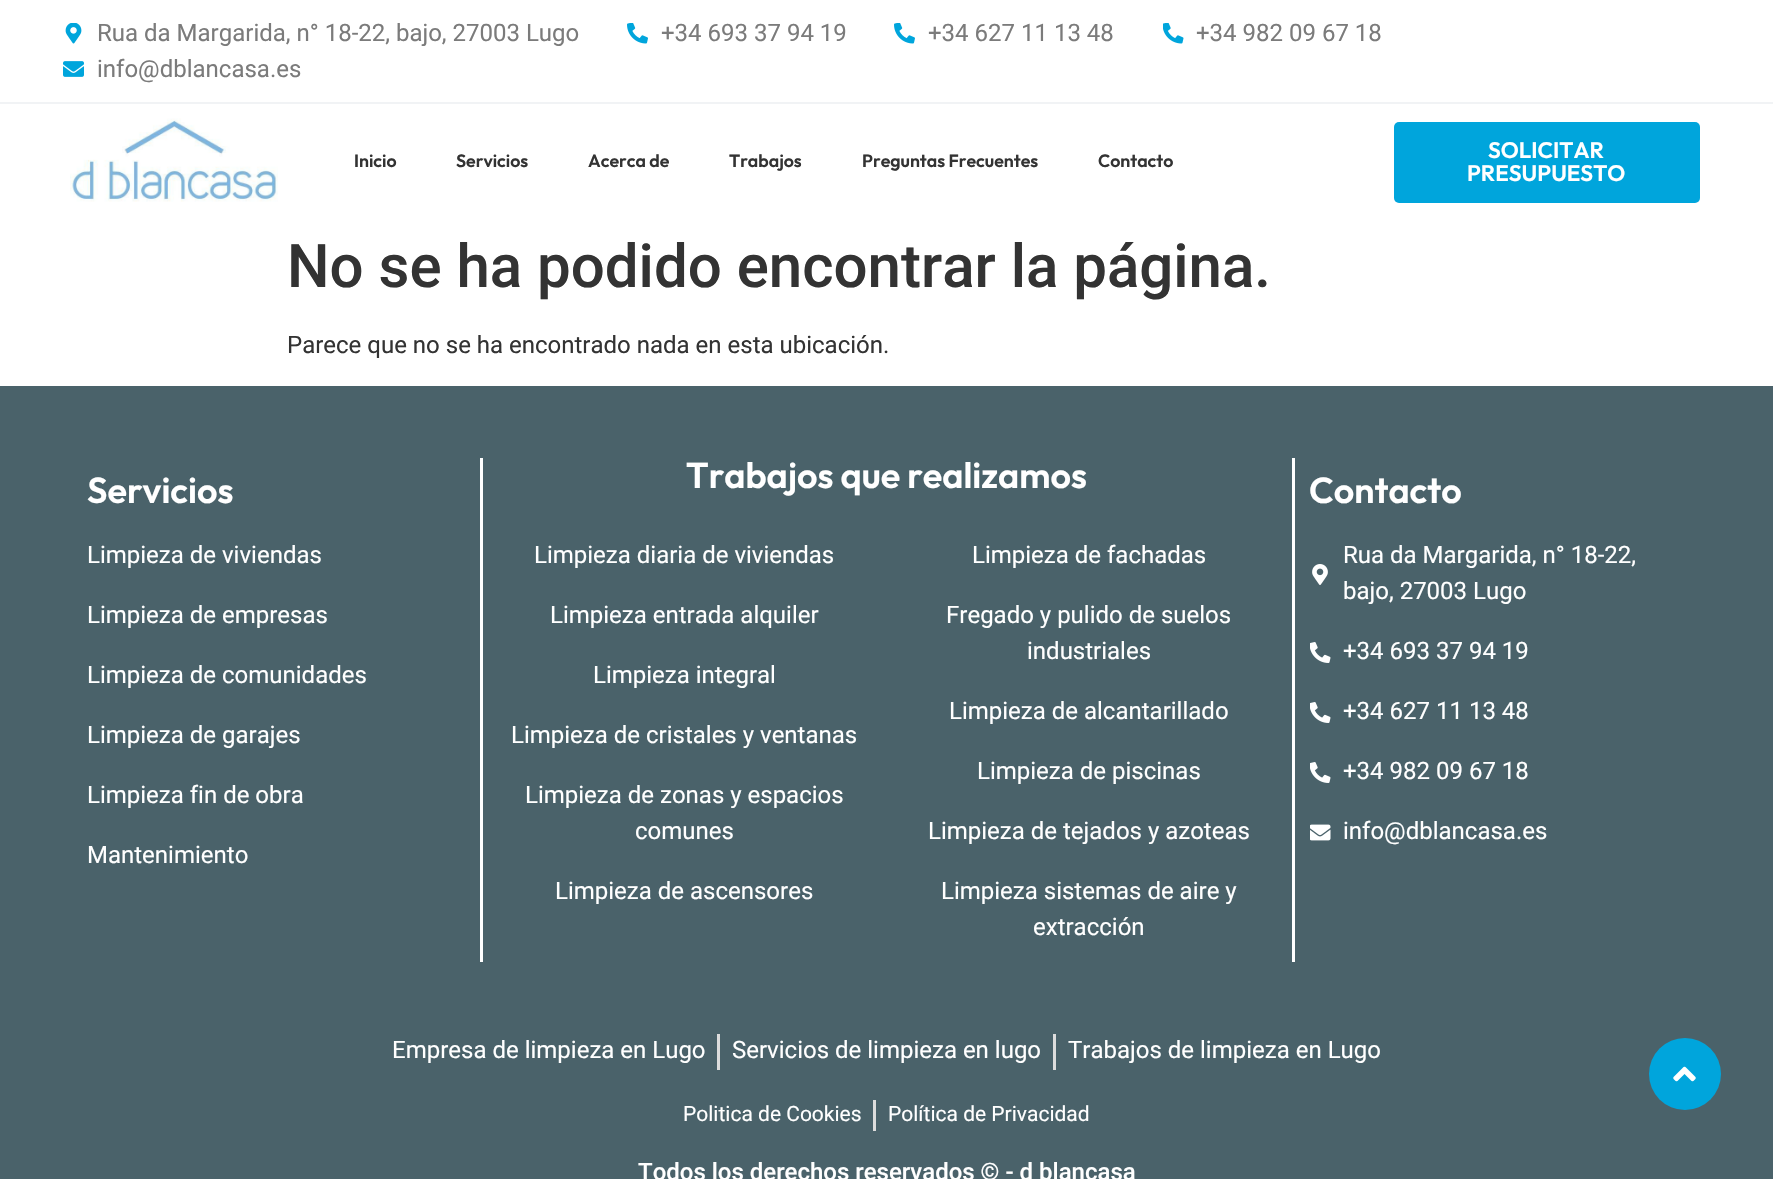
void draw(SkCanvas* canvas) {
	SkPaint paint;
	paint.setAntiAlias(true);
	canvas->clear(0xffffffff);
	canvas->drawImageRect(SkImages::DeferredFromEncodedData(SkData::MakeFromFileName("img1.png")), SkRect::MakeXYWH(65, 23, 17, 21), SkSamplingOptions());
	SkFont f1(fontMgr->matchFamilyStyle("Roboto", SkFontStyle::Normal()), 24);
	f1.setSubpixel(true);
	paint.setColor(0xff7b7b7b);
	canvas->drawString("Rua da Margarida, n° 18-22, bajo, 27003 Lugo", 97, 41, f1, paint);
	canvas->drawImageRect(SkImages::DeferredFromEncodedData(SkData::MakeFromFileName("img2.png")), SkRect::MakeXYWH(627, 23, 21, 21), SkSamplingOptions());
	canvas->drawString("+34 693 37 94 19", 661, 41, f1, paint);
	canvas->drawImageRect(SkImages::DeferredFromEncodedData(SkData::MakeFromFileName("img2.png")), SkRect::MakeXYWH(894, 23, 21, 21), SkSamplingOptions());
	canvas->drawString("+34 627 11 13 48", 928, 41, f1, paint);
	canvas->drawImageRect(SkImages::DeferredFromEncodedData(SkData::MakeFromFileName("img3.png")), SkRect::MakeXYWH(1163, 23, 21, 21), SkSamplingOptions());
	canvas->drawString("+34 982 09 67 18", 1196, 41, f1, paint);
	canvas->drawImageRect(SkImages::DeferredFromEncodedData(SkData::MakeFromFileName("img4.png")), SkRect::MakeXYWH(63, 61, 21, 16), SkSamplingOptions());
	canvas->drawString("info@dblancasa.es", 97, 77, f1, paint);
	paint.setColor(0xfff1f3f5);
	canvas->drawRect(SkRect::MakeXYWH(0, 102, 1773, 2), paint);
	canvas->drawImageRect(SkImages::DeferredFromEncodedData(SkData::MakeFromFileName("img5.png")), SkRect::MakeXYWH(70, 118, 208, 84), SkSamplingOptions());
	SkFont f2(fontMgr->matchFamilyStyle("Outfit", SkFontStyle(600, SkFontStyle::kNormal_Width, SkFontStyle::kUpright_Slant)), 17.75);
	f2.setSubpixel(true);
	paint.setColor(0xff333333);
	canvas->drawString("Inicio", 354, 167, f2, paint);
	canvas->drawString("Servicios", 456, 167, f2, paint);
	canvas->drawString("Acerca de", 588, 167, f2, paint);
	canvas->drawString("Trabajos", 729, 167, f2, paint);
	canvas->drawString("Preguntas Frecuentes", 862, 167, f2, paint);
	canvas->drawString("Contacto", 1098, 167, f2, paint);
	paint.setColor(0xff00a5dc);
	canvas->drawRoundRect(SkRect::MakeXYWH(1394, 122, 306, 81), 5, 5, paint);
	SkFont f3(fontMgr->matchFamilyStyle("Outfit", SkFontStyle(600, SkFontStyle::kNormal_Width, SkFontStyle::kUpright_Slant)), 22.5);
	f3.setSubpixel(true);
	paint.setColor(0xffffffff);
	canvas->drawString("SOLICITAR", 1488, 158, f3, paint);
	canvas->drawString("PRESUPUESTO", 1467, 181, f3, paint);
	paint.setColor(0xff4a626a);
	canvas->drawRect(SkRect::MakeXYWH(0, 386, 1773, 793), paint);
	paint.setColor(0xff00a5dc);
	canvas->drawCircle(1685, 1074, 36, paint);
	canvas->drawImageRect(SkImages::DeferredFromEncodedData(SkData::MakeFromFileName("img6.png")), SkRect::MakeXYWH(1673, 1066, 23, 16), SkSamplingOptions());
	SkFont f4(fontMgr->matchFamilyStyle("Roboto", SkFontStyle(500, SkFontStyle::kNormal_Width, SkFontStyle::kUpright_Slant)), 60);
	f4.setSubpixel(true);
	paint.setColor(0xff333333);
	canvas->drawString("No se ha podido encontrar la página.", 287, 287, f4, paint);
	canvas->drawString("Parece que no se ha encontrado nada en esta ubicación.", 287, 353, f1, paint);
	SkFont f5(fontMgr->matchFamilyStyle("Outfit", SkFontStyle(600, SkFontStyle::kNormal_Width, SkFontStyle::kUpright_Slant)), 36);
	f5.setSubpixel(true);
	paint.setColor(0xffffffff);
	canvas->drawString("Servicios", 87, 503, f5, paint);
	canvas->drawString("Limpieza de viviendas", 87, 563, f1, paint);
	canvas->drawString("Limpieza de empresas", 87, 623, f1, paint);
	canvas->drawString("Limpieza de comunidades", 87, 683, f1, paint);
	canvas->drawString("Limpieza de garajes", 87, 743, f1, paint);
	canvas->drawString("Limpieza fin de obra", 87, 803, f1, paint);
	canvas->drawString("Mantenimiento", 87, 863, f1, paint);
	canvas->drawRect(SkRect::MakeXYWH(1292, 458, 3, 504), paint);
	canvas->drawRect(SkRect::MakeXYWH(480, 458, 3, 504), paint);
	canvas->drawString("Trabajos que realizamos", 686, 488, f5, paint);
	canvas->drawString("Limpieza diaria de viviendas", 534, 563, f1, paint);
	canvas->drawString("Limpieza entrada alquiler", 550, 623, f1, paint);
	canvas->drawString("Limpieza integral", 593, 683, f1, paint);
	canvas->drawString("Limpieza de cristales y ventanas", 511, 743, f1, paint);
	canvas->drawString("Limpieza de zonas y espacios", 525, 803, f1, paint);
	canvas->drawString("comunes", 635, 839, f1, paint);
	canvas->drawString("Limpieza de ascensores", 555, 899, f1, paint);
	canvas->drawString("Limpieza de fachadas", 972, 563, f1, paint);
	canvas->drawString("Fregado y pulido de suelos", 946, 623, f1, paint);
	canvas->drawString("industriales", 1027, 659, f1, paint);
	canvas->drawString("Limpieza de alcantarillado", 949, 719, f1, paint);
	canvas->drawString("Limpieza de piscinas", 977, 779, f1, paint);
	canvas->drawString("Limpieza de tejados y azoteas", 928, 839, f1, paint);
	canvas->drawString("Limpieza sistemas de aire y", 941, 899, f1, paint);
	canvas->drawString("extracción", 1033, 935, f1, paint);
	canvas->drawString("Contacto", 1309, 503, f5, paint);
	canvas->drawImageRect(SkImages::DeferredFromEncodedData(SkData::MakeFromFileName("img7.png")), SkRect::MakeXYWH(1312, 564, 16, 21), SkSamplingOptions());
	canvas->drawString("Rua da Margarida, n° 18-22,", 1343, 563, f1, paint);
	canvas->drawString("bajo, 27003 Lugo", 1343, 599, f1, paint);
	canvas->drawImageRect(SkImages::DeferredFromEncodedData(SkData::MakeFromFileName("img8.png")), SkRect::MakeXYWH(1310, 642, 21, 21), SkSamplingOptions());
	canvas->drawString("+34 693 37 94 19", 1343, 659, f1, paint);
	canvas->drawImageRect(SkImages::DeferredFromEncodedData(SkData::MakeFromFileName("img8.png")), SkRect::MakeXYWH(1310, 702, 21, 21), SkSamplingOptions());
	canvas->drawString("+34 627 11 13 48", 1343, 719, f1, paint);
	canvas->drawImageRect(SkImages::DeferredFromEncodedData(SkData::MakeFromFileName("img8.png")), SkRect::MakeXYWH(1310, 762, 21, 21), SkSamplingOptions());
	canvas->drawString("+34 982 09 67 18", 1343, 779, f1, paint);
	canvas->drawImageRect(SkImages::DeferredFromEncodedData(SkData::MakeFromFileName("img9.png")), SkRect::MakeXYWH(1310, 824, 21, 17), SkSamplingOptions());
	canvas->drawString("info@dblancasa.es", 1343, 839, f1, paint);
	canvas->drawString("Empresa de limpieza en Lugo", 392, 1058, f1, paint);
	paint.setColor(0xffdddddd);
	canvas->drawRect(SkRect::MakeXYWH(717, 1034, 3, 36), paint);
	paint.setColor(0xffffffff);
	canvas->drawString("Servicios de limpieza en lugo", 732, 1058, f1, paint);
	paint.setColor(0xffdddddd);
	canvas->drawRect(SkRect::MakeXYWH(1053, 1034, 3, 36), paint);
	paint.setColor(0xffffffff);
	canvas->drawString("Trabajos de limpieza en Lugo", 1068, 1058, f1, paint);
	SkFont f6(fontMgr->matchFamilyStyle("Roboto", SkFontStyle::Normal()), 21);
	f6.setSubpixel(true);
	canvas->drawString("Politica de Cookies", 683, 1121, f6, paint);
	paint.setColor(0xffdddddd);
	canvas->drawRect(SkRect::MakeXYWH(873, 1100, 3, 31), paint);
	paint.setColor(0xffffffff);
	canvas->drawString("Política de Privacidad", 888, 1121, f6, paint);
	SkFont f7(fontMgr->matchFamilyStyle("Roboto", SkFontStyle(500, SkFontStyle::kNormal_Width, SkFontStyle::kUpright_Slant)), 24);
	f7.setSubpixel(true);
	canvas->drawString("Todos los derechos reservados © - d blancasa", 638, 1180, f7, paint);
}
